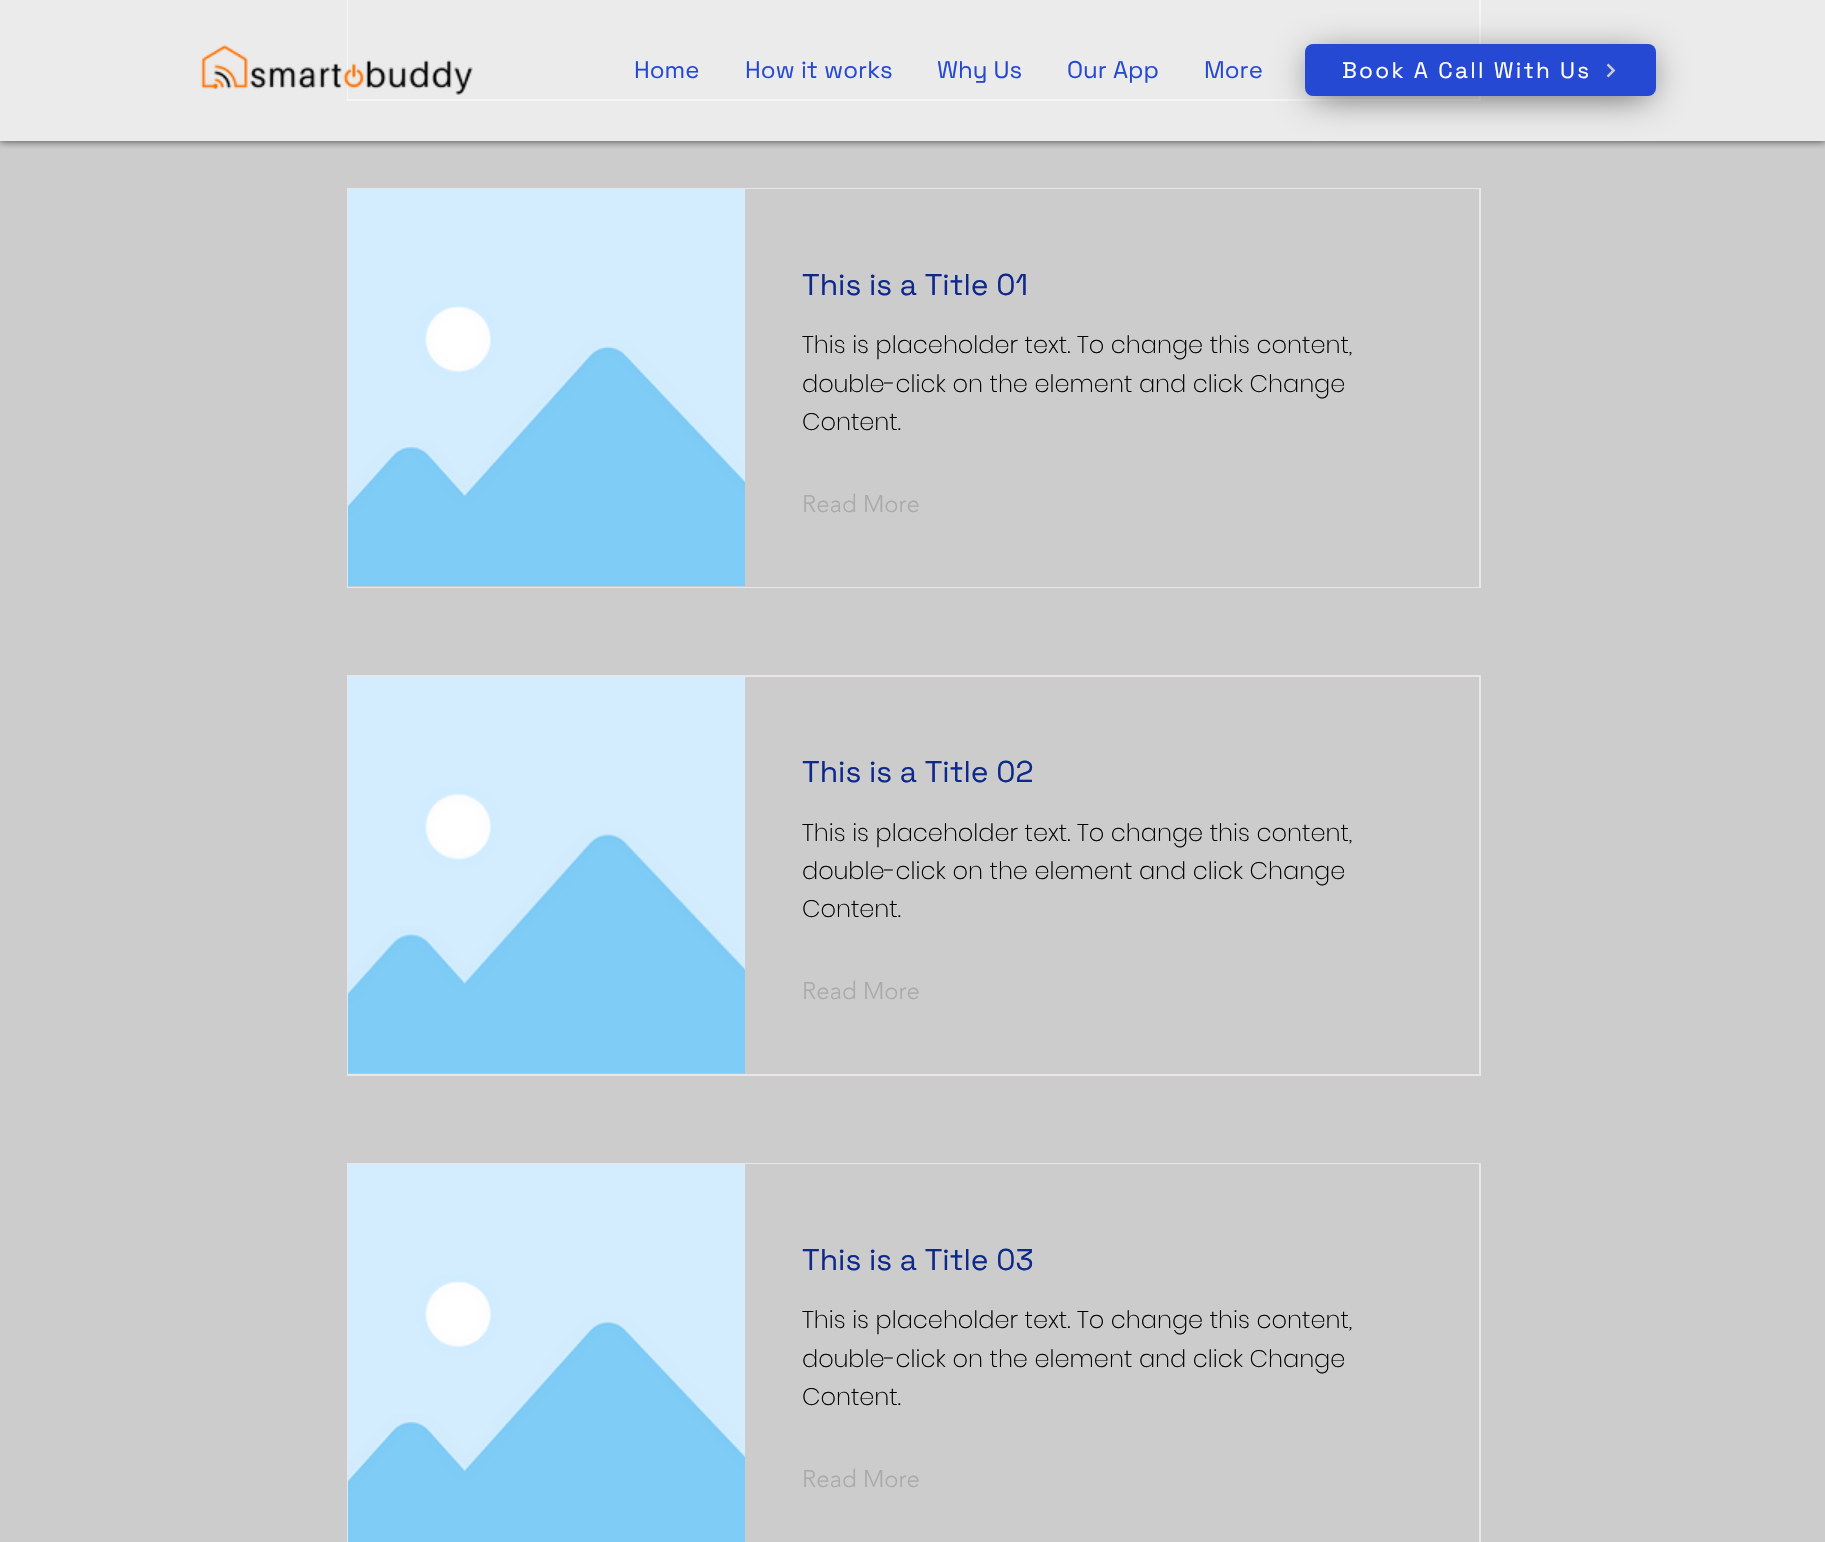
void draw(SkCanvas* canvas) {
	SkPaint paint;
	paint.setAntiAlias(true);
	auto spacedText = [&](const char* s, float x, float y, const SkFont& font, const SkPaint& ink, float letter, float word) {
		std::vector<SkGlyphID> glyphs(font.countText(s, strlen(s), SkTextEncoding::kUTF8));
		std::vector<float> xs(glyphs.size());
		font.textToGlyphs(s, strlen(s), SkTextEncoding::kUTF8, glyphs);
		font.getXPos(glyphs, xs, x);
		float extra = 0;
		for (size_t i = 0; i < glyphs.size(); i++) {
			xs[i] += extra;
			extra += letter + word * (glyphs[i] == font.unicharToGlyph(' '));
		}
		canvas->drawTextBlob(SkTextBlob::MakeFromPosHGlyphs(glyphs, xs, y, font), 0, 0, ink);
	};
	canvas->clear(0xffcccccc);
	paint.setColor(0xffebebeb);
	canvas->drawRect(SkRect::MakeXYWH(0, 0, 1825, 141), paint);
	paint.setStroke(true);
	paint.setStrokeWidth(2);
	paint.setColor(0xfff6f5f5);
	canvas->drawRect(SkRect::MakeXYWH(348, -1, 1132, 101), paint);
	paint.setStroke(false);
	paint.setColor(0xffebebeb);
	canvas->drawRect(SkRect::MakeXYWH(348, 0, 1, 99), paint);
	canvas->save();
	canvas->clipRect(SkRect::MakeXYWH(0, 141, 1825, 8));
	paint.setColor(0xb3000000);
	paint.setMaskFilter(SkMaskFilter::MakeBlur(kNormal_SkBlurStyle, 4));
	canvas->drawRect(SkRect::MakeXYWH(0, 0, 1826, 141), paint);
	paint.setMaskFilter(nullptr);
	canvas->restore();
	canvas->drawImageRect(SkImages::DeferredFromEncodedData(SkData::MakeFromFileName("img1.png")), SkRect::MakeXYWH(200, 44, 273, 51), SkSamplingOptions());
	SkFont f1(fontMgr->matchFamilyStyle("Space Grotesk", SkFontStyle::Normal()), 24);
	f1.setSubpixel(true);
	paint.setColor(0xff2549d3);
	canvas->drawString("Home", 634, 78, f1, paint);
	canvas->drawString("How it works", 745, 78, f1, paint);
	canvas->drawString("Why Us", 937, 78, f1, paint);
	canvas->drawString("Our App", 1067, 78, f1, paint);
	canvas->drawString("More", 1204, 78, f1, paint);
	paint.setColor(0xff555555);
	paint.setMaskFilter(SkMaskFilter::MakeBlur(kNormal_SkBlurStyle, 18));
	canvas->drawRect(SkRect::MakeXYWH(1313, 57, 336, 38), paint);
	paint.setMaskFilter(nullptr);
	paint.setColor(0xff2549d3);
	canvas->drawRoundRect(SkRect::MakeXYWH(1305, 44, 351, 52), 8, 8, paint);
	SkFont f2(fontMgr->matchFamilyStyle("Space Grotesk", SkFontStyle::Normal()), 22.5);
	f2.setSubpixel(true);
	paint.setColor(0xffffffff);
	spacedText("Book A Call With Us", 1342, 78, f2, paint, 2.25, 0);
	canvas->drawImageRect(SkImages::DeferredFromEncodedData(SkData::MakeFromFileName("img2.png")), SkRect::MakeXYWH(1606, 63, 10, 15), SkSamplingOptions());
	paint.setStroke(true);
	paint.setColor(0xffe8e6e6);
	canvas->drawRect(SkRect::MakeXYWH(348, 189, 1132, 398), paint);
	paint.setStroke(false);
	paint.setColor(0xffcccccc);
	canvas->drawRect(SkRect::MakeXYWH(348, 189, 1131, 398), paint);
	canvas->drawImageRect(SkImages::DeferredFromEncodedData(SkData::MakeFromFileName("img3.png")), SkRect::MakeXYWH(348, 189, 398, 398), SkSamplingOptions());
	SkFont f3(fontMgr->matchFamilyStyle("Space Grotesk", SkFontStyle::Normal()), 30);
	f3.setSubpixel(true);
	paint.setColor(0xff0f298b);
	canvas->drawString("This is a Title 01", 802, 295, f3, paint);
	SkFont f4(fontMgr->matchFamilyStyle("Poppins", SkFontStyle(200, SkFontStyle::kNormal_Width, SkFontStyle::kUpright_Slant)), 24);
	f4.setSubpixel(true);
	paint.setColor(0xff000000);
	canvas->drawString("This is placeholder text. To change this content,", 802, 353, f4, paint);
	canvas->drawString("double-click on the element and click Change", 802, 392, f4, paint);
	canvas->drawString("Content.", 802, 430, f4, paint);
	SkFont f5(fontMgr->matchFamilyStyle("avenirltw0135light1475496", SkFontStyle(300, SkFontStyle::kNormal_Width, SkFontStyle::kUpright_Slant)), 24);
	f5.setSubpixel(true);
	paint.setColor(0xffaaaaaa);
	canvas->drawString("Read More", 802, 512, f5, paint);
	paint.setStroke(true);
	paint.setColor(0xffe8e6e6);
	canvas->drawRect(SkRect::MakeXYWH(348, 676, 1132, 399), paint);
	paint.setStroke(false);
	paint.setColor(0xffcccccc);
	canvas->drawRect(SkRect::MakeXYWH(348, 677, 1, 397), paint);
	canvas->drawImageRect(SkImages::DeferredFromEncodedData(SkData::MakeFromFileName("img4.png")), SkRect::MakeXYWH(348, 676, 398, 398), SkSamplingOptions());
	paint.setColor(0xff0f298b);
	canvas->drawString("This is a Title 02", 802, 782, f3, paint);
	paint.setColor(0xff000000);
	canvas->drawString("This is placeholder text. To change this content,", 802, 841, f4, paint);
	canvas->drawString("double-click on the element and click Change", 802, 879, f4, paint);
	canvas->drawString("Content.", 802, 917, f4, paint);
	paint.setColor(0xffaaaaaa);
	canvas->drawString("Read More", 802, 999, f5, paint);
	paint.setStroke(true);
	paint.setColor(0xffe8e6e6);
	canvas->drawRect(SkRect::MakeXYWH(348, 1164, 1132, 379), paint);
	paint.setStroke(false);
	paint.setColor(0xffcccccc);
	canvas->drawRect(SkRect::MakeXYWH(745, 1164, 734, 1), paint);
	canvas->drawImageRect(SkImages::DeferredFromEncodedData(SkData::MakeFromFileName("img5.png")), SkRect::MakeXYWH(348, 1164, 398, 378), SkSamplingOptions());
	paint.setColor(0xff0f298b);
	canvas->drawString("This is a Title 03", 802, 1270, f3, paint);
	paint.setColor(0xff000000);
	canvas->drawString("This is placeholder text. To change this content,", 802, 1328, f4, paint);
	canvas->drawString("double-click on the element and click Change", 802, 1367, f4, paint);
	canvas->drawString("Content.", 802, 1405, f4, paint);
	paint.setColor(0xffaaaaaa);
	canvas->drawString("Read More", 802, 1487, f5, paint);
}
